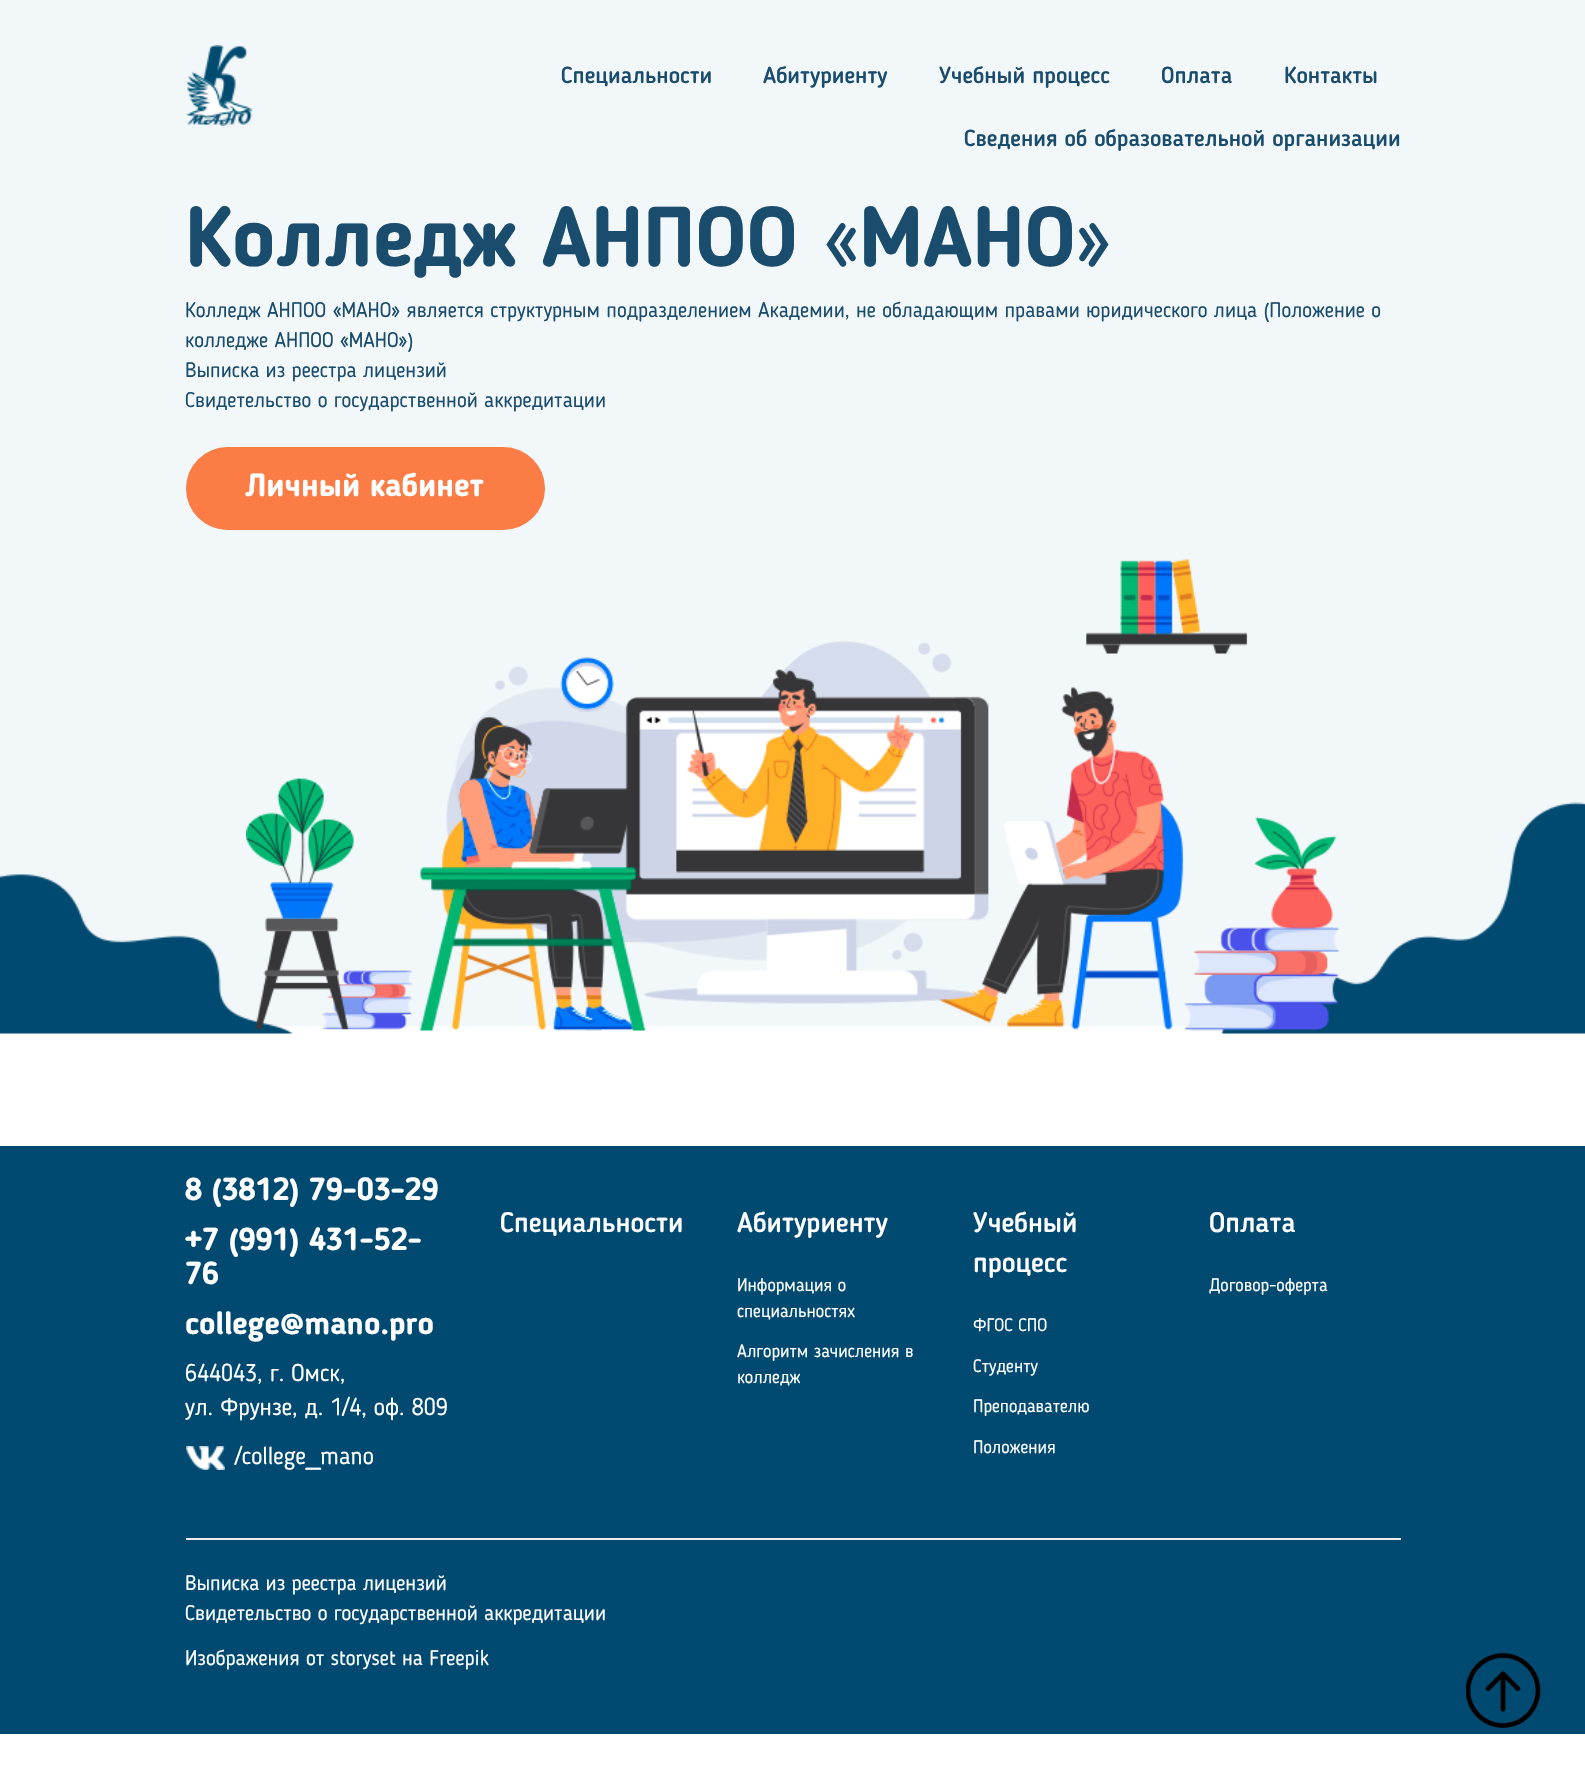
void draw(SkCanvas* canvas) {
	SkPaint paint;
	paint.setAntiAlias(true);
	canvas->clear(0xffffffff);
	paint.setColor(0xfff2f7f9);
	canvas->drawRect(SkRect::MakeXYWH(0, 0, 1585, 1026), paint);
	canvas->drawImageRect(SkImages::DeferredFromEncodedData(SkData::MakeFromFileName("img1.png")), SkRect::MakeXYWH(186, 45, 68, 81), SkSamplingOptions());
	SkFont f1(fontMgr->matchFamilyStyle("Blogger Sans", SkFontStyle(500, SkFontStyle::kNormal_Width, SkFontStyle::kUpright_Slant)), 23.1);
	f1.setSubpixel(true);
	paint.setColor(0xff1a4c6d);
	canvas->drawString("Специальности", 561, 83, f1, paint);
	canvas->drawString("Абитуриенту", 763, 83, f1, paint);
	canvas->drawString("Учебный процесс", 939, 83, f1, paint);
	canvas->drawString("Оплата", 1161, 83, f1, paint);
	canvas->drawString("Контакты", 1284, 83, f1, paint);
	canvas->drawString("Сведения об образовательной организации", 964, 146, f1, paint);
	canvas->drawImageRect(SkImages::DeferredFromEncodedData(SkData::MakeFromFileName("img3.png")), SkRect::MakeXYWH(0, 874, 293, 160), SkSamplingOptions());
	canvas->drawImageRect(SkImages::DeferredFromEncodedData(SkData::MakeFromFileName("img4.png")), SkRect::MakeXYWH(1221, 802, 364, 232), SkSamplingOptions());
	canvas->drawImageRect(SkImages::DeferredFromEncodedData(SkData::MakeFromFileName("img2.png")), SkRect::MakeXYWH(246, 559, 1094, 472), SkSamplingOptions());
	SkFont f2(fontMgr->matchFamilyStyle("Blogger Sans", SkFontStyle::Bold()), 84);
	f2.setSubpixel(true);
	canvas->drawString("Колледж АНПОО «МАНО»", 185, 266, f2, paint);
	SkFont f3(fontMgr->matchFamilyStyle("Blogger Sans", SkFontStyle::Normal()), 21);
	f3.setSubpixel(true);
	canvas->drawString("Колледж АНПОО «МАНО» является структурным подразделением Академии, не обладающим правами юридического лица (Положение о", 185, 317, f3, paint);
	canvas->drawString("колледже АНПОО «МАНО»)", 185, 347, f3, paint);
	canvas->drawString("Выписка из реестра лицензий", 185, 377, f3, paint);
	canvas->drawString("Свидетельство о государственной аккредитации", 185, 407, f3, paint);
	paint.setColor(0xfffb7c44);
	canvas->drawRoundRect(SkRect::MakeXYWH(186, 447, 359, 83), 41.5, 41.5, paint);
	SkFont f4(fontMgr->matchFamilyStyle("Blogger Sans", SkFontStyle::Bold()), 32);
	f4.setSubpixel(true);
	paint.setColor(0xffffffff);
	canvas->drawString("Личный кабинет", 245, 496, f4, paint);
	paint.setColor(0xff004a71);
	canvas->drawRect(SkRect::MakeXYWH(0, 1146, 1585, 588), paint);
	SkFont f5(fontMgr->matchFamilyStyle("Blogger Sans", SkFontStyle::Bold()), 31.5);
	f5.setSubpixel(true);
	paint.setColor(0xffffffff);
	canvas->drawString("8 (3812) 79-03-29", 185, 1200, f5, paint);
	canvas->drawString("+7 (991) 431-52-", 185, 1250, f5, paint);
	canvas->drawString("76", 185, 1284, f5, paint);
	canvas->drawString("college@mano.pro", 185, 1334, f5, paint);
	SkFont f6(fontMgr->matchFamilyStyle("Blogger Sans", SkFontStyle::Normal()), 24);
	f6.setSubpixel(true);
	canvas->drawString("644043, г. Омск,", 185, 1381, f6, paint);
	canvas->drawString("ул. Фрунзе, д. 1/4, оф. 809", 185, 1415, f6, paint);
	canvas->drawImageRect(SkImages::DeferredFromEncodedData(SkData::MakeFromFileName("img5.png")), SkRect::MakeXYWH(186, 1446, 39, 24), SkSamplingOptions());
	canvas->drawString("/college_mano", 235, 1464, f6, paint);
	SkFont f7(fontMgr->matchFamilyStyle("Blogger Sans", SkFontStyle(500, SkFontStyle::kNormal_Width, SkFontStyle::kUpright_Slant)), 28);
	f7.setSubpixel(true);
	canvas->drawString("Специальности", 500, 1232, f7, paint);
	canvas->drawString("Абитуриенту", 737, 1232, f7, paint);
	SkFont f8(fontMgr->matchFamilyStyle("Blogger Sans", SkFontStyle::Normal()), 18);
	f8.setSubpixel(true);
	canvas->drawString("Информация о", 737, 1291, f8, paint);
	canvas->drawString("специальностях", 737, 1317, f8, paint);
	canvas->drawString("Алгоритм зачисления в", 737, 1357, f8, paint);
	canvas->drawString("колледж", 737, 1383, f8, paint);
	canvas->drawString("Учебный", 973, 1232, f7, paint);
	canvas->drawString("процесс", 973, 1272, f7, paint);
	canvas->drawString("ФГОС СПО", 973, 1331, f8, paint);
	canvas->drawString("Студенту", 973, 1372, f8, paint);
	canvas->drawString("Преподавателю", 973, 1412, f8, paint);
	canvas->drawString("Положения", 973, 1453, f8, paint);
	canvas->drawString("Оплата", 1209, 1232, f7, paint);
	canvas->drawString("Договор-оферта", 1209, 1291, f8, paint);
	paint.setColor(0xffeeeeee);
	canvas->drawRect(SkRect::MakeXYWH(186, 1538, 1215, 2), paint);
	paint.setColor(0xffffffff);
	canvas->drawString("Выписка из реестра лицензий", 185, 1590, f3, paint);
	canvas->drawString("Свидетельство о государственной аккредитации", 185, 1620, f3, paint);
	canvas->drawString("Изображения от storyset на Freepik", 185, 1665, f3, paint);
	canvas->drawImageRect(SkImages::DeferredFromEncodedData(SkData::MakeFromFileName("img6.png")), SkRect::MakeXYWH(1466, 1653, 75, 75), SkSamplingOptions());
}
